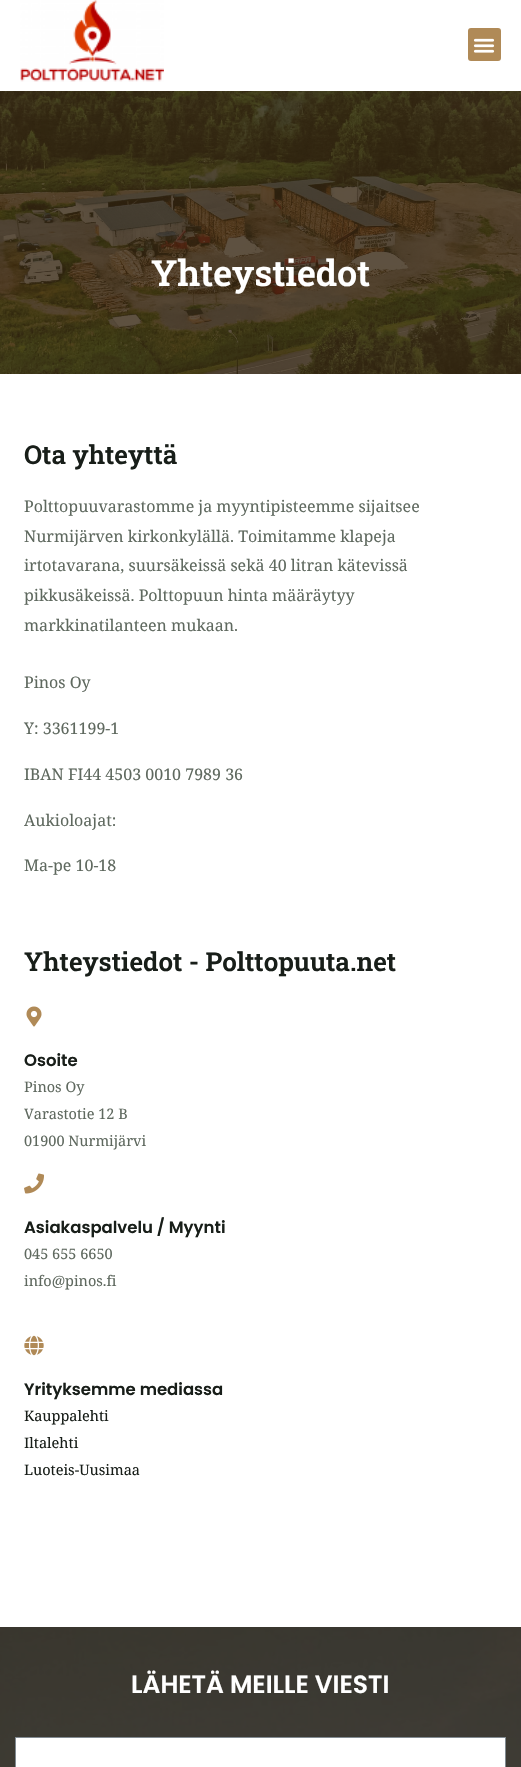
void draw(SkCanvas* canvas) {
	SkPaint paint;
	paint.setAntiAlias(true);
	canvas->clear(0xffffffff);
	canvas->drawImageRect(SkImages::DeferredFromEncodedData(SkData::MakeFromFileName("img1.png")), SkRect::MakeXYWH(20, 0, 144, 82), SkSamplingOptions());
	paint.setColor(0xffb08a57);
	canvas->drawRoundRect(SkRect::MakeXYWH(468, 28, 33, 33), 3, 3, paint);
	canvas->drawImageRect(SkImages::DeferredFromEncodedData(SkData::MakeFromFileName("img2.png")), SkRect::MakeXYWH(473, 38, 22, 15), SkSamplingOptions());
	canvas->drawImageRect(SkImages::DeferredFromEncodedData(SkData::MakeFromFileName("img3.png")), SkRect::MakeXYWH(0, 91, 521, 283), SkSamplingOptions());
	SkFont f1(fontMgr->matchFamilyStyle("Roboto Slab", SkFontStyle(600, SkFontStyle::kNormal_Width, SkFontStyle::kUpright_Slant)), 36);
	f1.setSubpixel(true);
	paint.setColor(0xffffffff);
	canvas->drawString("Yhteystiedot", 151, 286, f1, paint);
	SkFont f2(fontMgr->matchFamilyStyle("Roboto Slab", SkFontStyle(600, SkFontStyle::kNormal_Width, SkFontStyle::kUpright_Slant)), 26);
	f2.setSubpixel(true);
	paint.setColor(0xff181e19);
	canvas->drawString("Ota yhteyttä", 24, 464, f2, paint);
	SkFont f3(fontMgr->matchFamilyStyle("Noto Serif", SkFontStyle::Normal()), 16);
	f3.setSubpixel(true);
	paint.setColor(0xff5f695f);
	canvas->drawString("Polttopuuvarastomme ja myyntipisteemme sijaitsee", 24, 512, f3, paint);
	canvas->drawString("Nurmijärven kirkonkylällä. Toimitamme klapeja", 24, 542, f3, paint);
	canvas->drawString("irtotavarana, suursäkeissä sekä 40 litran kätevissä", 24, 571, f3, paint);
	canvas->drawString("pikkusäkeissä. Polttopuun hinta määräytyy", 24, 601, f3, paint);
	canvas->drawString("markkinatilanteen mukaan.", 24, 631, f3, paint);
	canvas->drawString("Pinos Oy", 24, 688, f3, paint);
	canvas->drawString("Y: 3361199-1", 24, 734, f3, paint);
	canvas->drawString("IBAN FI44 4503 0010 7989 36", 24, 780, f3, paint);
	canvas->drawString("Aukioloajat:", 24, 826, f3, paint);
	canvas->drawString("Ma-pe 10-18", 24, 871, f3, paint);
	paint.setColor(0xff181e19);
	canvas->drawString("Yhteystiedot - Polttopuuta.net", 24, 971, f2, paint);
	canvas->drawImageRect(SkImages::DeferredFromEncodedData(SkData::MakeFromFileName("img4.png")), SkRect::MakeXYWH(26, 1006, 16, 21), SkSamplingOptions());
	SkFont f4(fontMgr->matchFamilyStyle("Poppins", SkFontStyle(600, SkFontStyle::kNormal_Width, SkFontStyle::kUpright_Slant)), 16.5);
	f4.setSubpixel(true);
	canvas->drawString("Osoite", 24, 1066, f4, paint);
	SkFont f5(fontMgr->matchFamilyStyle("Noto Serif", SkFontStyle::Normal()), 14.5);
	f5.setSubpixel(true);
	paint.setColor(0xff5f695f);
	canvas->drawString("Pinos Oy", 24, 1092, f5, paint);
	canvas->drawString("Varastotie 12 B", 24, 1119, f5, paint);
	canvas->drawString("01900 Nurmijärvi", 24, 1146, f5, paint);
	canvas->drawImageRect(SkImages::DeferredFromEncodedData(SkData::MakeFromFileName("img5.png")), SkRect::MakeXYWH(24, 1173, 20, 21), SkSamplingOptions());
	paint.setColor(0xff181e19);
	canvas->drawString("Asiakaspalvelu / Myynti", 24, 1233, f4, paint);
	paint.setColor(0xff5f695f);
	canvas->drawString("045 655 6650", 24, 1259, f5, paint);
	canvas->drawString("info@pinos.fi", 24, 1286, f5, paint);
	canvas->drawImageRect(SkImages::DeferredFromEncodedData(SkData::MakeFromFileName("img6.png")), SkRect::MakeXYWH(24, 1335, 20, 21), SkSamplingOptions());
	paint.setColor(0xff181e19);
	canvas->drawString("Yrityksemme mediassa", 24, 1395, f4, paint);
	canvas->drawString("Kauppalehti", 24, 1421, f5, paint);
	canvas->drawString("Iltalehti", 24, 1448, f5, paint);
	canvas->drawString("Luoteis-Uusimaa", 24, 1475, f5, paint);
	canvas->drawImageRect(SkImages::DeferredFromEncodedData(SkData::MakeFromFileName("img7.png")), SkRect::MakeXYWH(0, 1627, 521, 140), SkSamplingOptions());
	SkFont f6(fontMgr->matchFamilyStyle("Poppins", SkFontStyle(600, SkFontStyle::kNormal_Width, SkFontStyle::kUpright_Slant)), 25);
	f6.setSubpixel(true);
	paint.setColor(0xffffffff);
	canvas->drawString("LÄHETÄ MEILLE VIESTI", 131, 1693, f6, paint);
	canvas->drawRect(SkRect::MakeXYWH(15.5, 1737.5, 490, 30), paint);
	paint.setStroke(true);
	paint.setStrokeWidth(1);
	paint.setColor(0xff818a91);
	canvas->drawRect(SkRect::MakeXYWH(15.5, 1737.5, 490, 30), paint);
}
